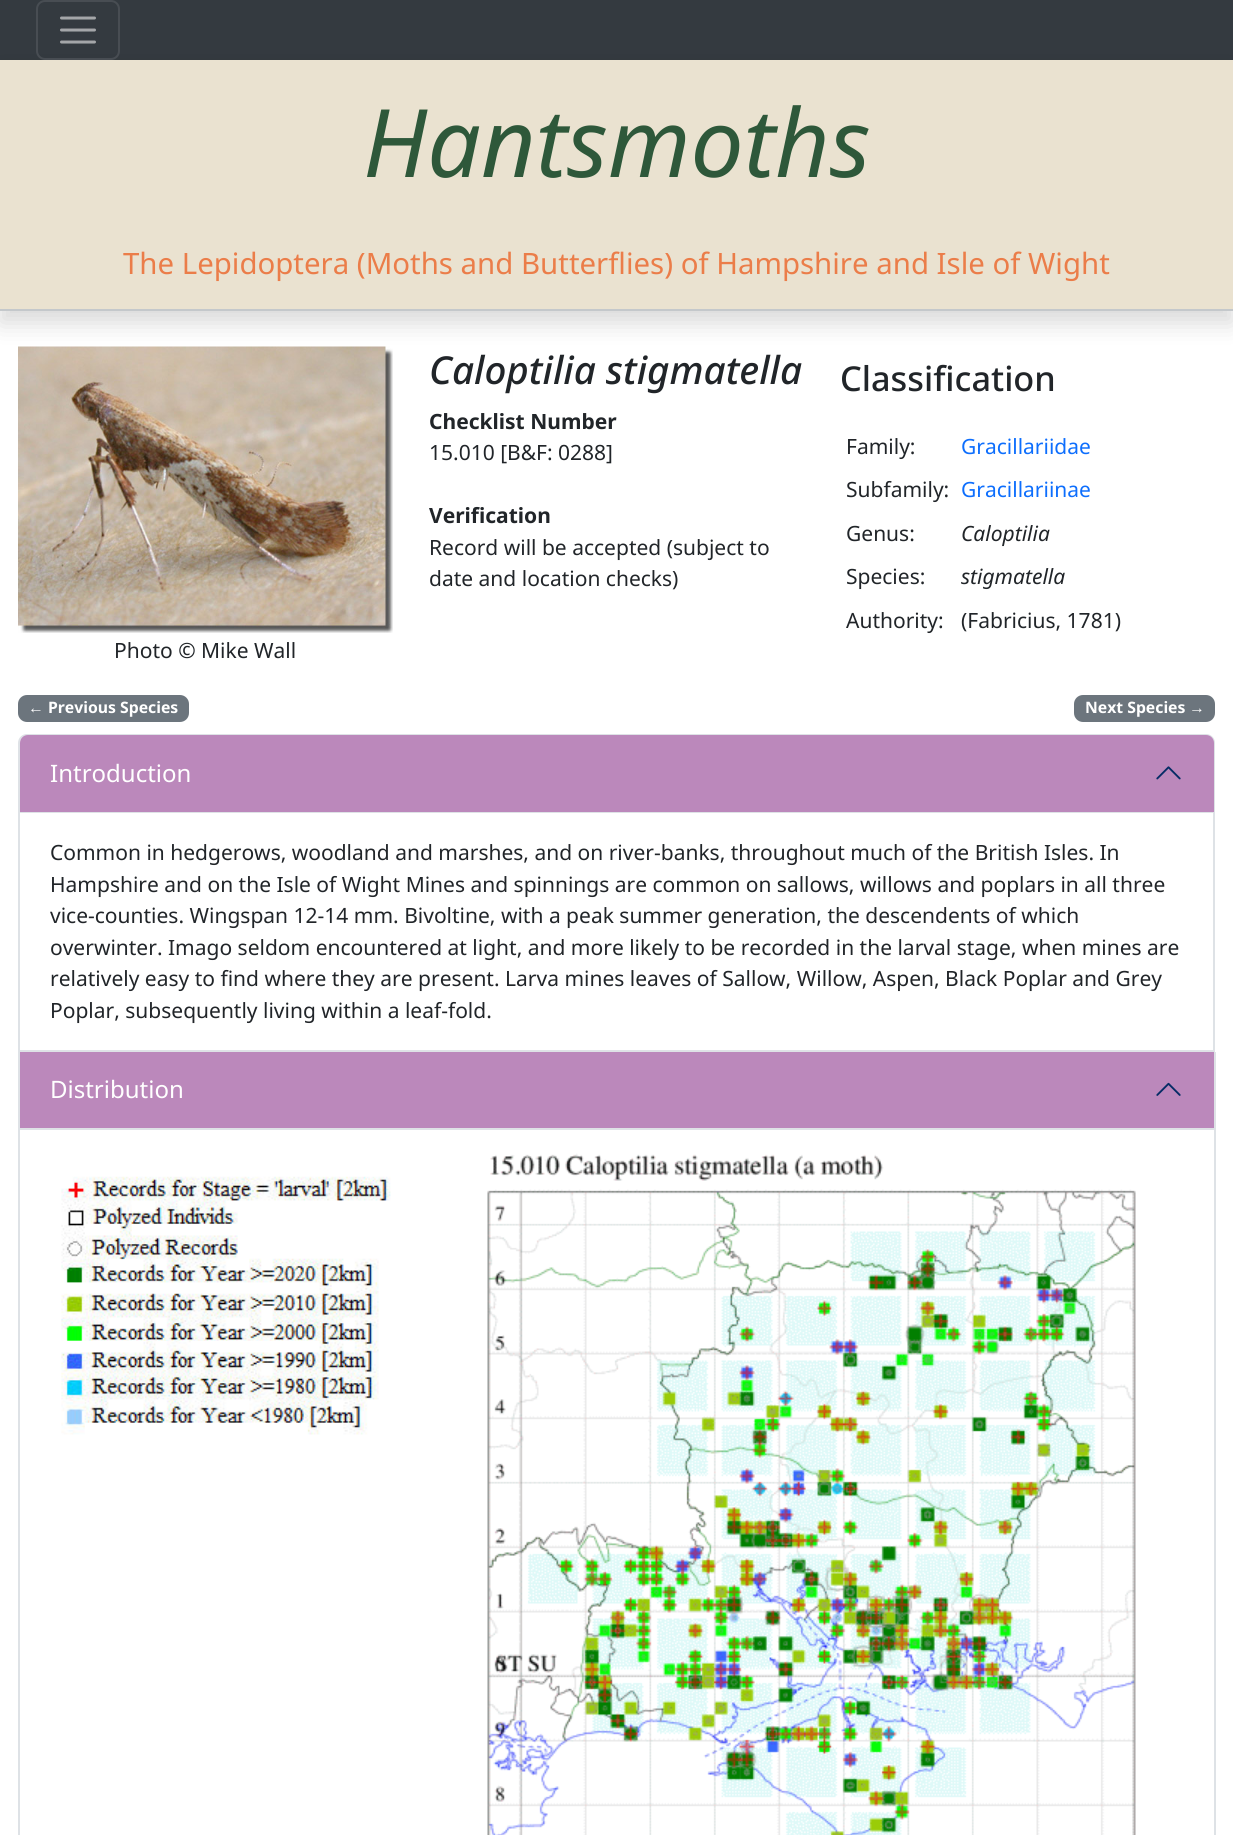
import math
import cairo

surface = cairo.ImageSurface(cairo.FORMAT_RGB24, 1233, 1835)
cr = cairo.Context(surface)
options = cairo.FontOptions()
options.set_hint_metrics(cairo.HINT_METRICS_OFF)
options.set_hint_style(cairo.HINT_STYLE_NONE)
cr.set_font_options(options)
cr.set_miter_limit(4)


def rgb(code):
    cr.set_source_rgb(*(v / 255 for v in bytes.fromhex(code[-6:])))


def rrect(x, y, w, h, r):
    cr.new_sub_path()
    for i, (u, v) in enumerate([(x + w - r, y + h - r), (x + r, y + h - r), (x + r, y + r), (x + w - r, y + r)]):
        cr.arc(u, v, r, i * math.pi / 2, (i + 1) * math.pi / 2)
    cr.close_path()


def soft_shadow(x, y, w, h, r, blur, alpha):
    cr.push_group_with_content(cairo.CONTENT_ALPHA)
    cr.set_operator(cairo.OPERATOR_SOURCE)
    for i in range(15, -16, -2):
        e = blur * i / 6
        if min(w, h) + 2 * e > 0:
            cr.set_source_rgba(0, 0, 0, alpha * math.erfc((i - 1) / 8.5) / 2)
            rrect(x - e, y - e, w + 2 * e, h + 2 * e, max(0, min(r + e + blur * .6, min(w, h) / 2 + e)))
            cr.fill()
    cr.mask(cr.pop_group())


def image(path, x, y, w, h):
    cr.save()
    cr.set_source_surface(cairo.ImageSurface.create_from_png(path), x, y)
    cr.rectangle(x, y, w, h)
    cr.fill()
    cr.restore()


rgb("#ffffff")
cr.paint()
rgb("#343a40")
cr.rectangle(0, 0, 1233, 60)
cr.fill()
rgb("#000000")
soft_shadow(0, 72, 1233, 251, 0, 12, 0.15)
rrect(37, 1, 82, 58, 8)
rgb("#484d53")
cr.stroke()
cr.new_path()
cr.move_to(61.5, 18)
cr.line_to(94.5, 18)
cr.move_to(61.5, 30)
cr.line_to(94.5, 30)
cr.move_to(61.5, 42)
cr.line_to(94.5, 42)
rgb("#a4a6a9")
cr.set_line_width(3)
cr.set_line_cap(cairo.LINE_CAP_ROUND)
cr.stroke()
rgb("#eae2d0")
cr.rectangle(0, 60, 1233, 249)
cr.fill()
rgb("#c4c8cb")
cr.rectangle(0, 309, 1233, 2)
cr.fill()
image("img/1.png", 18, 346, 375, 287)
rgb("#6c757d")
rrect(18, 695, 171, 27, 9)
cr.fill()
rrect(1074, 695, 141, 27, 9)
cr.fill()
cr.new_path()
cr.move_to(27, 735)
cr.line_to(1206, 735)
cr.curve_to(1210.5, 735, 1214, 738.5, 1214, 743)
cr.line_to(1214, 1051)
cr.line_to(19, 1051)
cr.line_to(19, 743)
cr.curve_to(19, 738.5, 22.5, 735, 27, 735)
cr.close_path()
rgb("#dee2e6")
cr.set_line_width(2)
cr.set_line_cap(cairo.LINE_CAP_BUTT)
cr.stroke()
rgb("#bb88bb")
cr.new_path()
cr.move_to(28, 735)
cr.line_to(1206, 735)
cr.curve_to(1210.5, 735, 1214, 738.5, 1214, 743)
cr.line_to(1214, 813)
cr.line_to(20, 813)
cr.line_to(20, 743)
cr.curve_to(20, 738.5, 23.5, 735, 28, 735)
cr.close_path()
cr.fill()
rgb("#dee2e6")
cr.rectangle(20, 812, 1194, 1)
cr.fill()
image("img/2.png", 1156, 766, 25, 14)
for x, y, w, h, color in [
    (1214, 1052, 2, 783, "#dee2e6"),
    (18, 1052, 2, 783, "#dee2e6"),
    (20, 1052, 1194, 76, "#bb88bb"),
    (20, 1128, 1194, 2, "#dee2e6"),
]:
    rgb(color)
    cr.rectangle(x, y, w, h)
    cr.fill()
image("img/3.png", 1156, 1082, 25, 14)
image("img/4.png", 61, 1176, 330, 259)
image("img/5.png", 487, 1153, 649, 682)
cr.select_font_face("Noto Sans", cairo.FONT_SLANT_ITALIC)
cr.set_font_size(94.5)
rgb("#2e583a")
cr.move_to(363, 177)
cr.show_text("Hantsmoths")
cr.select_font_face("Noto Sans")
cr.set_font_size(29.4)
rgb("#eb7d49")
cr.move_to(123, 274)
cr.show_text("The Lepidoptera (Moths and Butterflies) of Hampshire and Isle of Wight")
cr.select_font_face("Noto Sans Medium", cairo.FONT_SLANT_ITALIC)
cr.set_font_size(38.5)
rgb("#212529")
cr.move_to(429, 384)
cr.show_text("Caloptilia stigmatella")
cr.select_font_face("Noto Sans", cairo.FONT_SLANT_NORMAL, cairo.FONT_WEIGHT_BOLD)
cr.set_font_size(21)
cr.move_to(429, 429)
cr.show_text("Checklist Number")
cr.select_font_face("Noto Sans")
cr.move_to(429, 460)
cr.show_text("15.010 [B&F: 0288]")
cr.select_font_face("Noto Sans", cairo.FONT_SLANT_NORMAL, cairo.FONT_WEIGHT_BOLD)
cr.move_to(429, 523)
cr.show_text("Verification")
cr.select_font_face("Noto Sans")
cr.move_to(429, 555)
cr.show_text("Record will be accepted (subject to")
cr.move_to(429, 586)
cr.show_text("date and location checks)")
cr.select_font_face("Noto Sans Medium")
cr.set_font_size(34.25)
cr.move_to(840, 391)
cr.show_text("Classification")
cr.select_font_face("Noto Sans")
cr.set_font_size(21)
cr.move_to(846, 454)
cr.show_text("Family:")
rgb("#0d6efd")
cr.move_to(961, 454)
cr.show_text("Gracillariidae")
rgb("#212529")
cr.move_to(846, 497)
cr.show_text("Subfamily:")
rgb("#0d6efd")
cr.move_to(961, 497)
cr.show_text("Gracillariinae")
rgb("#212529")
cr.move_to(846, 541)
cr.show_text("Genus:")
cr.select_font_face("Noto Sans", cairo.FONT_SLANT_ITALIC)
cr.move_to(961, 541)
cr.show_text("Caloptilia")
cr.select_font_face("Noto Sans")
cr.move_to(846, 584)
cr.show_text("Species:")
cr.select_font_face("Noto Sans", cairo.FONT_SLANT_ITALIC)
cr.move_to(961, 584)
cr.show_text("stigmatella")
cr.select_font_face("Noto Sans")
for x, y, s in [
    (846, 628, "Authority:"),
    (961, 628, "(Fabricius, 1781)"),
    (114, 658, "Photo © Mike Wall"),
]:
    cr.move_to(x, y)
    cr.show_text(s)
cr.select_font_face("Liberation Sans", cairo.FONT_SLANT_NORMAL, cairo.FONT_WEIGHT_BOLD)
cr.set_font_size(15.75)
rgb("#ffffff")
cr.move_to(28, 713)
cr.show_text("←")
cr.select_font_face("Noto Sans", cairo.FONT_SLANT_NORMAL, cairo.FONT_WEIGHT_BOLD)
cr.move_to(48, 713)
cr.show_text("Previous Species")
cr.move_to(1085, 713)
cr.show_text("Next Species")
cr.select_font_face("Liberation Sans", cairo.FONT_SLANT_NORMAL, cairo.FONT_WEIGHT_BOLD)
cr.move_to(1189, 713)
cr.show_text("→")
cr.select_font_face("Noto Sans")
cr.set_font_size(24)
cr.move_to(50, 782)
cr.show_text("Introduction")
cr.set_font_size(21)
rgb("#212529")
for x, y, s in [
    (50, 860, "Common in hedgerows, woodland and marshes, and on river-banks, throughout much of the British Isles. In"),
    (50, 892, "Hampshire and on the Isle of Wight Mines and spinnings are common on sallows, willows and poplars in all three"),
    (50, 923, "vice-counties. Wingspan 12-14 mm. Bivoltine, with a peak summer generation, the descendents of which"),
    (50, 955, "overwinter. Imago seldom encountered at light, and more likely to be recorded in the larval stage, when mines are"),
    (50, 986, "relatively easy to find where they are present. Larva mines leaves of Sallow, Willow, Aspen, Black Poplar and Grey"),
    (50, 1018, "Poplar, subsequently living within a leaf-fold."),
]:
    cr.move_to(x, y)
    cr.show_text(s)
cr.set_font_size(24)
rgb("#ffffff")
cr.move_to(50, 1098)
cr.show_text("Distribution")
surface.write_to_png("page.png")
